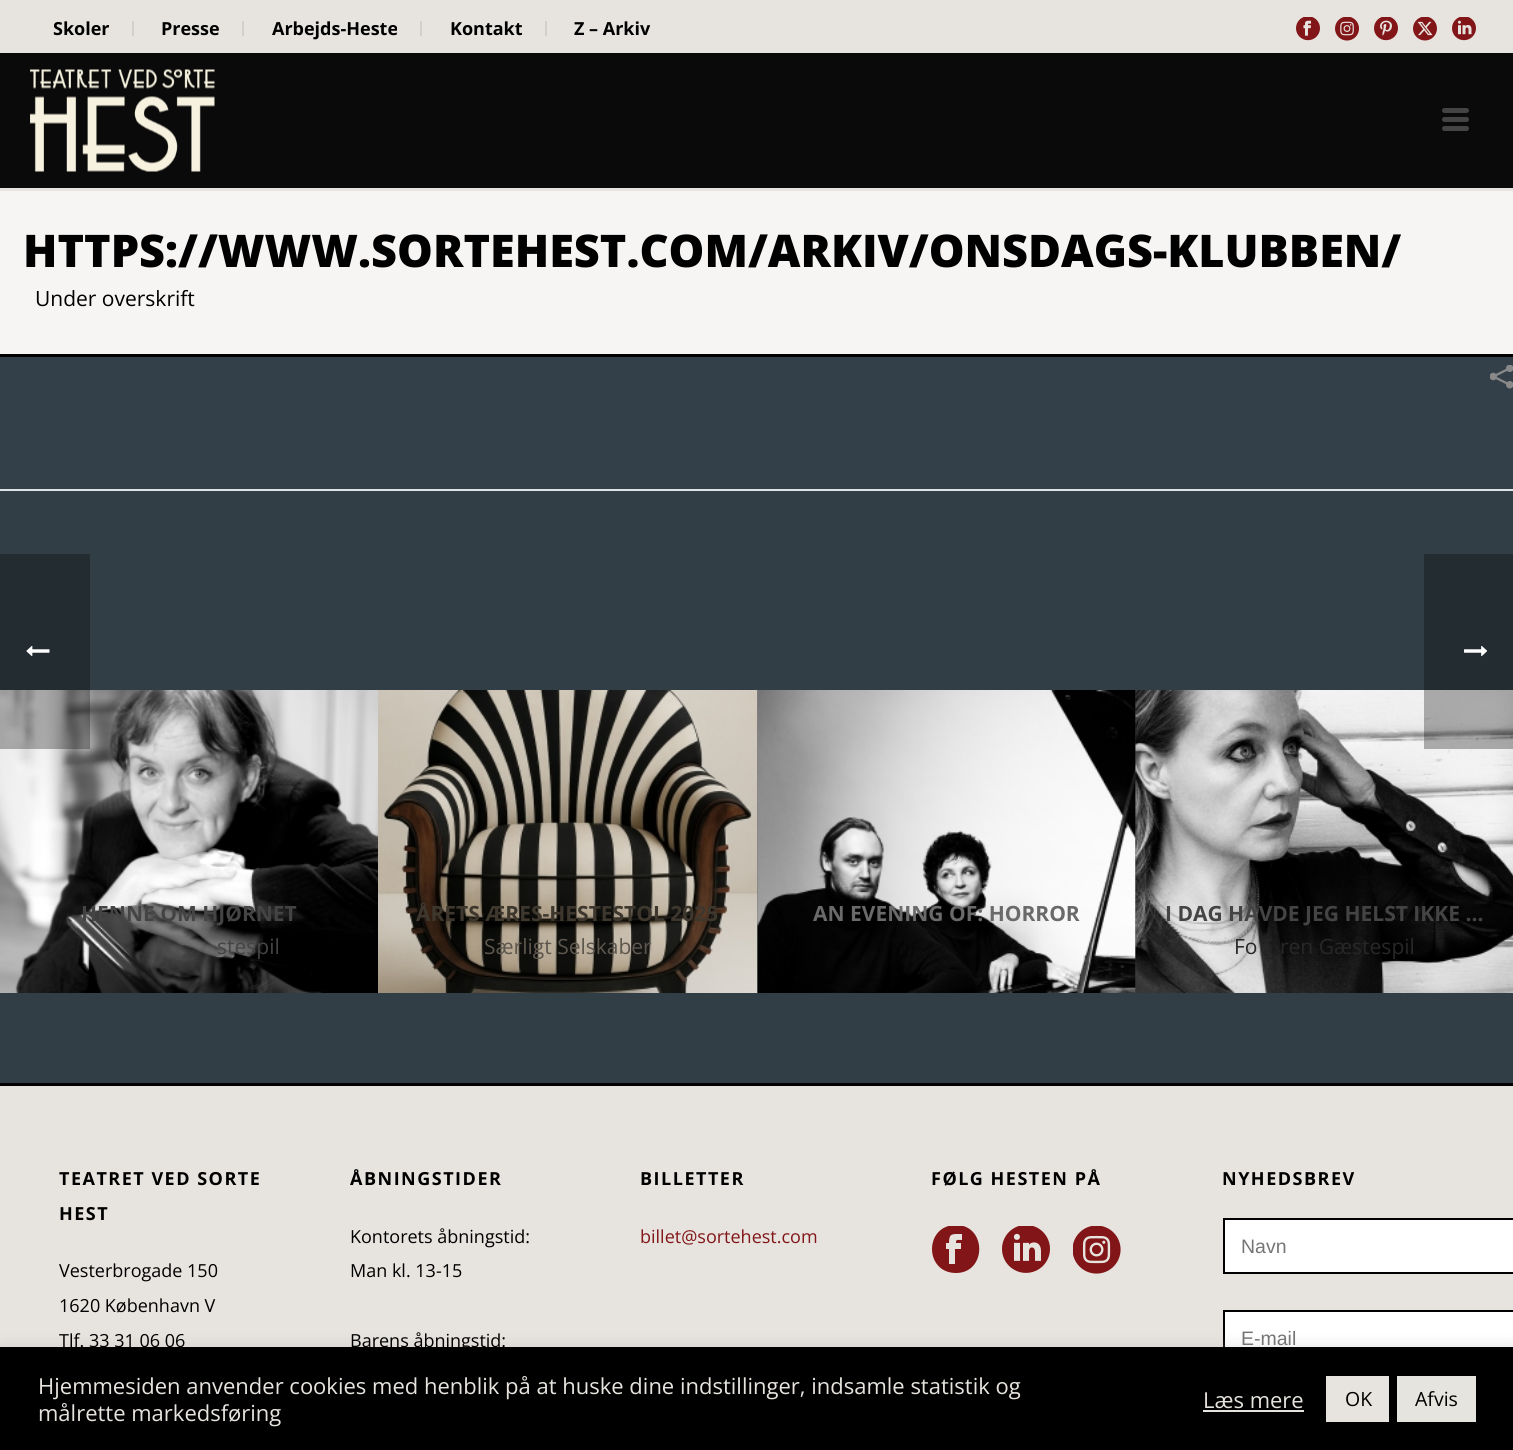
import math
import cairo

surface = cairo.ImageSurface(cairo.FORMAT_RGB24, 1513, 1450)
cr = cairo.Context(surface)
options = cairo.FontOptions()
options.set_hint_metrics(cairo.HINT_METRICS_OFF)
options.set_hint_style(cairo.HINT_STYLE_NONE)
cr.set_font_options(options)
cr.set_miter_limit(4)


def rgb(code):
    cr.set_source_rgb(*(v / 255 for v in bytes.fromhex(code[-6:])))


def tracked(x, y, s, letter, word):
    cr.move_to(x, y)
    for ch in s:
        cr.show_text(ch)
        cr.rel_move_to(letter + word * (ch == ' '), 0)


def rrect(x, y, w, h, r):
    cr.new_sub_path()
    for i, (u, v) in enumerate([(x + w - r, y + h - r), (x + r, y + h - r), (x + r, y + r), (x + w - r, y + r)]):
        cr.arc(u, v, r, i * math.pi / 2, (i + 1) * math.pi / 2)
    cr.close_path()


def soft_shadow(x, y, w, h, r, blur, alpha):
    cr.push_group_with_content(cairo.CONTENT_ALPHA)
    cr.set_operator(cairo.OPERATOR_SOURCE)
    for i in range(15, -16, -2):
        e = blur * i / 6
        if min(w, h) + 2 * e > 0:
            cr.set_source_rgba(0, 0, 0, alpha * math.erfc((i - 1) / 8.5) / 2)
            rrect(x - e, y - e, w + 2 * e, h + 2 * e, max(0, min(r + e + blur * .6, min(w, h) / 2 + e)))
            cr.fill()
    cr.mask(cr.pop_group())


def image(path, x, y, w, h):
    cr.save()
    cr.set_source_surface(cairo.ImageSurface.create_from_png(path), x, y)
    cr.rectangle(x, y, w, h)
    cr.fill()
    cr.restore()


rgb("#344049")
cr.paint()
for x, y, w, h, color in [
    (0, 191, 1513, 163, "#f7f5f3"),
    (0, 354, 1513, 3, "#000000"),
    (0, 0, 1513, 53, "#e7e4df"),
    (132, 21, 2, 15, "#d2d0cc"),
    (242, 21, 2, 15, "#d2d0cc"),
    (420, 21, 2, 15, "#d2d0cc"),
    (545, 21, 2, 15, "#d2d0cc"),
]:
    rgb(color)
    cr.rectangle(x, y, w, h)
    cr.fill()
image("img/1.png", 1296, 17, 24, 24)
image("img/2.png", 1335, 17, 24, 24)
image("img/3.png", 1374, 17, 24, 24)
image("img/4.png", 1413, 17, 24, 24)
image("img/5.png", 1452, 17, 24, 24)
rgb("#e7e4df")
cr.rectangle(0, 188, 1513, 3)
cr.fill()
rgb("#0a0a0a")
cr.rectangle(0, 53, 1513, 135)
cr.fill()
image("img/6.png", 30, 69, 185, 103)
rgb("#444444")
rrect(1442, 108, 27, 5, 2.5)
cr.fill()
rrect(1442, 117, 27, 5, 2.5)
cr.fill()
rrect(1442, 126, 27, 5, 2.5)
cr.fill()
image("img/7.png", 1490, 365, 23, 24)
rgb("#323e46")
cr.rectangle(0, 491, 1513, 592)
cr.fill()
rgb("#dfe2e5")
cr.rectangle(0, 489, 1513, 2)
cr.fill()
image("img/8.png", 0, 690, 378, 303)
image("img/9.png", 378, 690, 380, 303)
image("img/10.png", 757, 690, 379, 303)
image("img/11.png", 1135, 690, 378, 303)
rgb("#e7e4df")
cr.rectangle(0, 1086, 1513, 261)
cr.fill()
rgb("#000000")
cr.rectangle(0, 1083, 1513, 3)
cr.fill()
cr.save()
cr.rectangle(932, 1226, 48, 48)
cr.clip()
rgb("#821517")
cr.new_path()
cr.move_to(956, 1225)
cr.curve_to(924, 1225, 924, 1273, 956, 1273)
cr.curve_to(987, 1273, 987, 1225, 956, 1225)
cr.close_path()
cr.move_to(962, 1240)
cr.curve_to(957, 1240, 956, 1239, 956, 1243)
cr.line_to(961, 1243)
cr.line_to(961, 1249)
cr.line_to(955, 1249)
cr.line_to(955, 1264)
cr.line_to(949, 1264)
cr.line_to(949, 1249)
cr.line_to(946, 1249)
cr.line_to(946, 1243)
cr.line_to(949, 1243)
cr.curve_to(949, 1233, 952, 1234, 962, 1234)
cr.close_path()
cr.fill()
cr.restore()
image("img/12.png", 1002, 1226, 48, 47)
image("img/13.png", 1073, 1226, 48, 48)
rgb("#ffffff")
cr.rectangle(1224, 1219, 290, 54)
cr.fill_preserve()
rgb("#000000")
cr.stroke()
rgb("#ffffff")
cr.rectangle(1225, 1312, 288, 35)
cr.fill()
cr.rectangle(1224, 1311, 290, 53)
rgb("#000000")
cr.stroke()
cr.set_source_rgba(0, 0, 0, 0.3)
cr.rectangle(0, 554, 90, 195)
cr.fill()
image("img/14.png", 26, 645, 24, 12)
cr.rectangle(1424, 554, 89, 195)
cr.fill()
image("img/15.png", 1464, 645, 24, 12)
rgb("#acabab")
soft_shadow(0, 1346, 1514, 103, 0, 7.5, 0.3)
for x, y, w, h, color in [
    (0, 1347, 1513, 103, "#000000"),
    (1203, 1410, 101, 2, "#e7e4df"),
    (1326, 1376, 63, 46, "#e7e4df"),
    (1397, 1376, 79, 46, "#e6e4de"),
]:
    rgb(color)
    cr.rectangle(x, y, w, h)
    cr.fill()
cr.select_font_face("Open Sans", cairo.FONT_SLANT_NORMAL, cairo.FONT_WEIGHT_BOLD)
cr.set_font_size(18)
rgb("#000000")
for x, y, s in [
    (53, 35, "Skoler"),
    (161, 35, "Presse"),
    (272, 35, "Arbejds-Heste"),
    (450, 35, "Kontakt"),
    (574, 35, "Z – Arkiv"),
]:
    cr.move_to(x, y)
    cr.show_text(s)
cr.select_font_face("Open Sans ExtraBold")
cr.set_font_size(45)
cr.move_to(23, 267)
cr.show_text("HTTPS://WWW.SORTEHEST.COM/ARKIV/ONSDAGS-KLUBBEN/")
cr.select_font_face("Open Sans")
cr.set_font_size(21)
cr.move_to(35, 306)
cr.show_text("Under overskrift")
cr.select_font_face("Open Sans", cairo.FONT_SLANT_NORMAL, cairo.FONT_WEIGHT_BOLD)
rgb("#444444")
cr.move_to(81, 921)
cr.show_text("HENNE OM HJØRNET")
cr.select_font_face("Open Sans")
cr.move_to(217, 954)
cr.show_text("stespil")
cr.select_font_face("Open Sans", cairo.FONT_SLANT_NORMAL, cairo.FONT_WEIGHT_BOLD)
rgb("#3e372e")
cr.move_to(416, 921)
cr.show_text("ÅRETS ÆRES-HESTESTOL 2025")
cr.select_font_face("Open Sans")
rgb("#5c564d")
cr.move_to(484, 954)
cr.show_text("Særligt Selskaber")
cr.select_font_face("Open Sans", cairo.FONT_SLANT_NORMAL, cairo.FONT_WEIGHT_BOLD)
rgb("#6a6a6a")
cr.move_to(813, 921)
cr.show_text("AN EVENING OF: HORROR")
rgb("#444444")
cr.move_to(1165, 921)
cr.show_text("I DAG HAVDE JEG HELST IKKE …")
cr.select_font_face("Open Sans")
rgb("#272727")
cr.move_to(1234, 954)
cr.show_text("Fo")
cr.move_to(1280, 954)
cr.show_text("ren Gæstespil")
cr.select_font_face("Open Sans", cairo.FONT_SLANT_NORMAL, cairo.FONT_WEIGHT_BOLD)
cr.set_font_size(18)
rgb("#000000")
tracked(59, 1185, "TEATRET VED SORTE", 1.5, 0)
tracked(59, 1220, "HEST", 1.5, 0)
cr.select_font_face("Open Sans")
for x, y, s in [
    (59, 1277, "Vesterbrogade 150"),
    (59, 1312, "1620 København V"),
    (59, 1347, "Tlf. 33 31 06 06"),
]:
    cr.move_to(x, y)
    cr.show_text(s)
cr.select_font_face("Open Sans", cairo.FONT_SLANT_NORMAL, cairo.FONT_WEIGHT_BOLD)
tracked(350, 1185, "ÅBNINGSTIDER", 1.5, 0)
cr.select_font_face("Open Sans")
for x, y, s in [
    (350, 1243, "Kontorets åbningstid:"),
    (350, 1277, "Man kl. 13-15"),
    (350, 1347, "Barens åbningstid:"),
]:
    cr.move_to(x, y)
    cr.show_text(s)
cr.select_font_face("Open Sans", cairo.FONT_SLANT_NORMAL, cairo.FONT_WEIGHT_BOLD)
tracked(640, 1185, "BILLETTER", 1.5, 0)
cr.select_font_face("Open Sans")
rgb("#821517")
cr.move_to(640, 1243)
cr.show_text("billet@sortehest.com")
cr.select_font_face("Open Sans", cairo.FONT_SLANT_NORMAL, cairo.FONT_WEIGHT_BOLD)
rgb("#000000")
tracked(931, 1185, "FØLG HESTEN PÅ", 1.5, 0)
tracked(1222, 1185, "NYHEDSBREV", 1.5, 0)
cr.select_font_face("Liberation Sans")
cr.set_font_size(19.5)
rgb("#757575")
cr.move_to(1241, 1253)
cr.show_text("Navn")
cr.move_to(1241, 1345)
cr.show_text("E-mail")
cr.select_font_face("Open Sans")
cr.set_font_size(22)
rgb("#e7e4df")
for x, y, s in [
    (38, 1394, "Hjemmesiden anvender cookies med henblik på at huske dine indstillinger, indsamle statistik og"),
    (38, 1421, "målrette markedsføring"),
    (1203, 1408, "Læs mere"),
]:
    cr.move_to(x, y)
    cr.show_text(s)
cr.set_font_size(19.5)
rgb("#000000")
cr.move_to(1345, 1406)
cr.show_text("OK")
cr.move_to(1415, 1406)
cr.show_text("Afvis")
surface.write_to_png("page.png")
